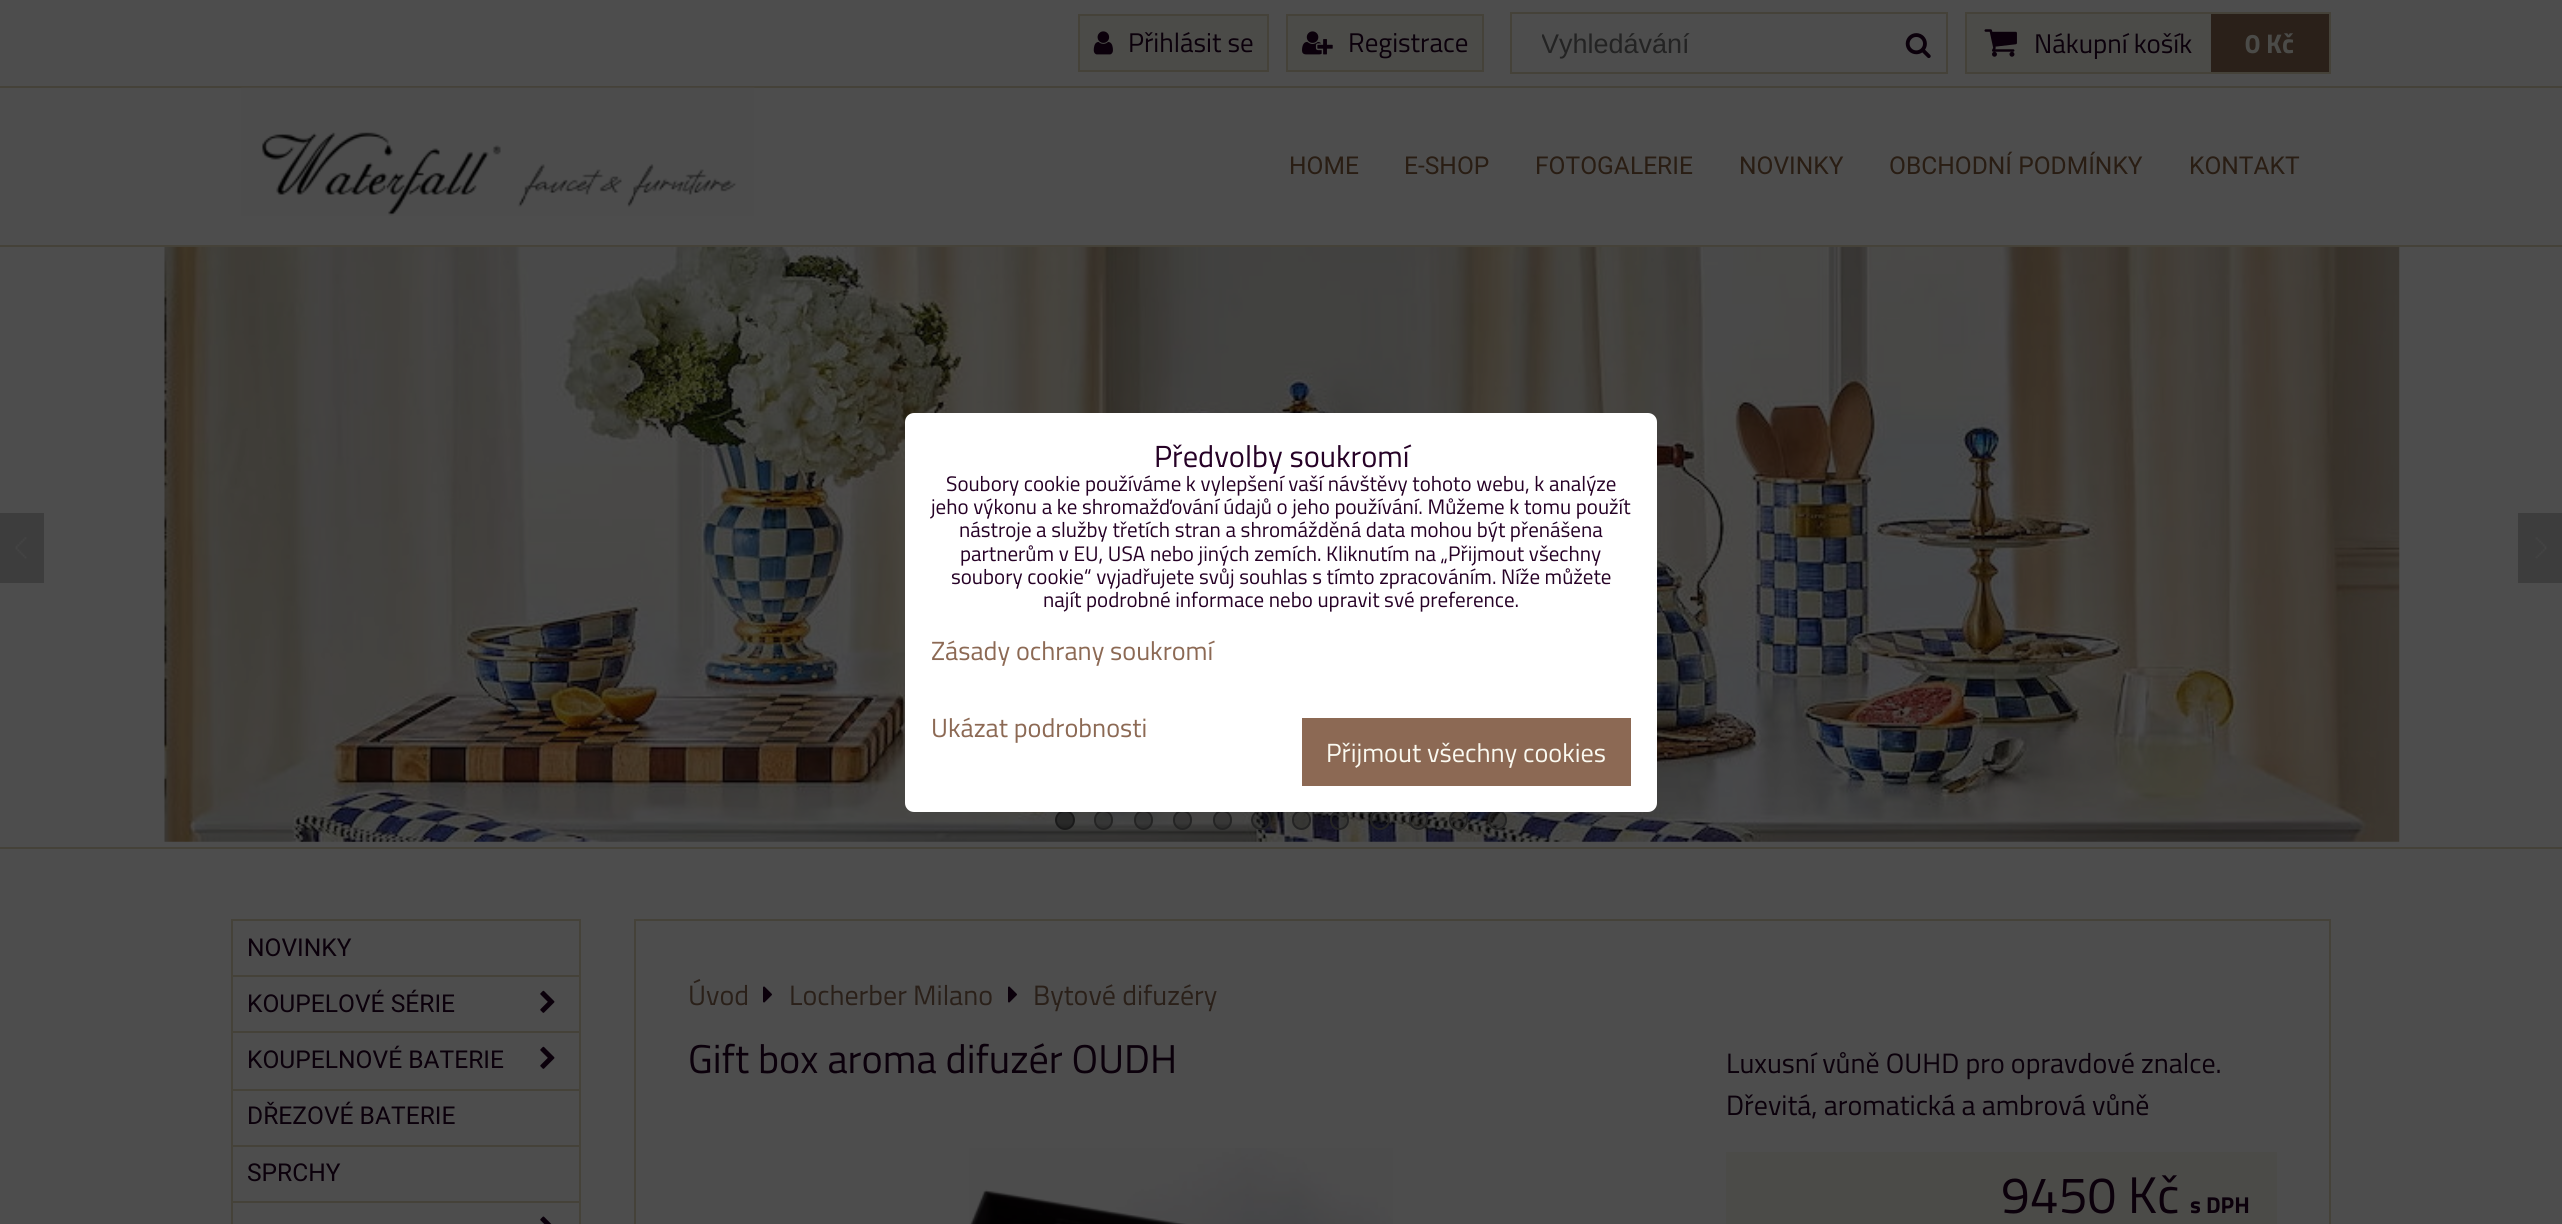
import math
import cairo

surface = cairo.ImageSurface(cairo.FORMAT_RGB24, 2562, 1224)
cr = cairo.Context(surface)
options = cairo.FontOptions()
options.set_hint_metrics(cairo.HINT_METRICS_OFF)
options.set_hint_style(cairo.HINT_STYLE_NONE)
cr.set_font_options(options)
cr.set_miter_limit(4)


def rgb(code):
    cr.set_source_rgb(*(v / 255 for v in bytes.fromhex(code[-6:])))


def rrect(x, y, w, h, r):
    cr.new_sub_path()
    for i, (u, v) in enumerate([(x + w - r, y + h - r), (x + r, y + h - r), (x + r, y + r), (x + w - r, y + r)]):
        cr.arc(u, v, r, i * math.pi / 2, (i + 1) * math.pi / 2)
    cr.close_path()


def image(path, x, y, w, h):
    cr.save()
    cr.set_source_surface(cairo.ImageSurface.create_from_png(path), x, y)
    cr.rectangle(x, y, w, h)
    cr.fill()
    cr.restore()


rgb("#4d4d4d")
cr.paint()
rgb("#454239")
cr.rectangle(0, 86, 2562, 2)
cr.fill()
rgb("#4b4b48")
cr.rectangle(1079, 15, 189, 56)
cr.fill_preserve()
rgb("#454239")
cr.stroke()
image("img/1.png", 1093, 31, 20, 24)
rgb("#4b4b48")
cr.rectangle(1287, 15, 196, 56)
cr.fill_preserve()
rgb("#454239")
cr.stroke()
image("img/2.png", 1302, 31, 31, 24)
cr.rectangle(1511, 13, 436, 60)
cr.stroke()
image("img/3.png", 1905, 33, 26, 26)
rgb("#4b4b48")
cr.rectangle(1967, 14, 242, 58)
cr.fill()
cr.rectangle(1966, 13, 364, 60)
rgb("#454239")
cr.stroke()
image("img/4.png", 1984, 29, 33, 28)
rgb("#2a2019")
cr.rectangle(2211, 14, 118, 58)
cr.fill()
rgb("#4b4b48")
cr.rectangle(2209, 14, 2, 58)
cr.fill()
image("img/5.png", 241, 87, 514, 129)
rgb("#454239")
cr.rectangle(0, 245, 2562, 2)
cr.fill()
cr.rectangle(0, 847, 2562, 2)
cr.fill()
image("img/6.png", 164, 246, 2236, 596)
rgb("#3d3d3d")
cr.rectangle(0, 513, 44, 70)
cr.fill()
image("img/7.png", 15, 537, 12, 22)
cr.rectangle(2518, 513, 44, 70)
cr.fill()
image("img/8.png", 2535, 537, 12, 22)
cr.set_source_rgba(0, 0, 0, 0.4)
cr.arc(1065, 820, 9, 0, 2 * math.pi)
cr.fill_preserve()
rgb("#1a1a1a")
cr.stroke()
cr.set_source_rgba(0, 0, 0, 0.2)
rrect(1095, 811, 17, 18, 8.5)
cr.fill_preserve()
rgb("#242424")
cr.stroke()
cr.set_source_rgba(0, 0, 0, 0.2)
rrect(1135, 811, 17, 18, 8.5)
cr.fill_preserve()
rgb("#242424")
cr.stroke()
cr.set_source_rgba(0, 0, 0, 0.2)
rrect(1174, 811, 17, 18, 8.5)
cr.fill_preserve()
rgb("#242424")
cr.stroke()
cr.set_source_rgba(0, 0, 0, 0.2)
rrect(1214, 811, 17, 18, 8.5)
cr.fill_preserve()
rgb("#242424")
cr.stroke()
cr.set_source_rgba(0, 0, 0, 0.2)
cr.arc(1261, 820, 9, 0, 2 * math.pi)
cr.fill_preserve()
rgb("#242424")
cr.stroke()
cr.set_source_rgba(0, 0, 0, 0.2)
rrect(1293, 811, 17, 18, 8.5)
cr.fill_preserve()
rgb("#242424")
cr.stroke()
cr.set_source_rgba(0, 0, 0, 0.2)
rrect(1331, 811, 17, 18, 8.5)
cr.fill_preserve()
rgb("#242424")
cr.stroke()
cr.set_source_rgba(0, 0, 0, 0.2)
cr.arc(1380, 820, 9, 0, 2 * math.pi)
cr.fill_preserve()
rgb("#242424")
cr.stroke()
cr.set_source_rgba(0, 0, 0, 0.2)
rrect(1410, 811, 17, 18, 8.5)
cr.fill_preserve()
rgb("#242424")
cr.stroke()
cr.set_source_rgba(0, 0, 0, 0.2)
rrect(1450, 811, 17, 18, 8.5)
cr.fill_preserve()
rgb("#242424")
cr.stroke()
cr.set_source_rgba(0, 0, 0, 0.2)
rrect(1489, 811, 17, 18, 8.5)
cr.fill_preserve()
rgb("#242424")
cr.stroke()
cr.rectangle(232, 920, 348, 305)
rgb("#454239")
cr.stroke()
cr.rectangle(233, 975, 346, 2)
cr.fill()
cr.rectangle(233, 1031, 346, 2)
cr.fill()
image("img/9.png", 540, 990, 15, 23)
cr.rectangle(233, 1089, 346, 2)
cr.fill()
image("img/9.png", 540, 1046, 15, 23)
cr.rectangle(233, 1145, 346, 2)
cr.fill()
cr.rectangle(233, 1201, 346, 2)
cr.fill()
image("img/10.png", 540, 1216, 12, 8)
cr.rectangle(635, 920, 1695, 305)
cr.stroke()
image("img/11.png", 763, 986, 9, 17)
image("img/11.png", 1008, 986, 9, 17)
image("img/12.png", 969, 1148, 424, 76)
rgb("#4b4b48")
cr.rectangle(1726, 1152, 551, 72)
cr.fill()
rgb("#ffffff")
rrect(905, 413, 752, 399, 9)
cr.fill()
rgb("#8c6954")
cr.rectangle(1302, 718, 329, 68)
cr.fill()
cr.select_font_face("Titillium Web")
cr.set_font_size(27)
rgb("#0b000b")
cr.move_to(1128, 52)
cr.show_text("Přihlásit se")
cr.move_to(1348, 52)
cr.show_text("Registrace")
cr.save()
cr.rectangle(1542, 28, 355, 32)
cr.clip()
cr.select_font_face("Liberation Sans")
rgb("#232323")
cr.move_to(1541, 53)
cr.show_text("Vyhledávání")
cr.restore()
cr.move_to(2034, 53)
cr.show_text("Nákupní košík")
cr.select_font_face("Titillium Web", cairo.FONT_SLANT_NORMAL, cairo.FONT_WEIGHT_BOLD)
rgb("#4b4b48")
cr.move_to(2245, 53)
cr.show_text("0 Kč")
cr.select_font_face("Roboto")
cr.set_font_size(24.6)
rgb("#291d13")
for x, y, s in [
    (1289, 174, "HOME"),
    (1404, 174, "E-SHOP"),
    (1535, 174, "FOTOGALERIE"),
    (1739, 174, "NOVINKY"),
    (1889, 174, "OBCHODNÍ PODMÍNKY"),
    (2189, 174, "KONTAKT"),
]:
    cr.move_to(x, y)
    cr.show_text(s)
rgb("#0b000b")
for x, y, s in [
    (247, 956, "NOVINKY"),
    (247, 1012, "KOUPELOVÉ SÉRIE"),
    (247, 1068, "KOUPELNOVÉ BATERIE"),
    (247, 1124, "DŘEZOVÉ BATERIE"),
    (247, 1181, "SPRCHY"),
]:
    cr.move_to(x, y)
    cr.show_text(s)
cr.select_font_face("Titillium Web")
cr.set_font_size(28)
rgb("#2a2019")
for x, y, s in [
    (688, 1005, "Úvod"),
    (789, 1005, "Locherber Milano"),
    (1033, 1005, "Bytové difuzéry"),
]:
    cr.move_to(x, y)
    cr.show_text(s)
cr.set_font_size(40.25)
rgb("#0b000b")
cr.move_to(688, 1073)
cr.show_text("Gift box aroma difuzér OUDH")
cr.set_font_size(28)
cr.move_to(1726, 1073)
cr.show_text("Luxusní vůně OUHD pro opravdové znalce.")
cr.move_to(1726, 1115)
cr.show_text("Dřevitá, aromatická a ambrová vůně")
cr.set_font_size(51.5)
cr.move_to(2001, 1213)
cr.show_text("9450 Kč")
cr.select_font_face("Titillium Web", cairo.FONT_SLANT_NORMAL, cairo.FONT_WEIGHT_BOLD)
cr.set_font_size(23)
cr.move_to(2190, 1213)
cr.show_text("s DPH")
cr.select_font_face("Titillium Web")
cr.set_font_size(30.5)
rgb("#260126")
cr.move_to(1154, 467)
cr.show_text("Předvolby soukromí")
cr.set_font_size(21)
for x, y, s in [
    (946, 491, "Soubory cookie používáme k vylepšení vaší návštěvy tohoto webu, k analýze"),
    (931, 514, "jeho výkonu a ke shromažďování údajů o jeho používání. Můžeme k tomu použít"),
    (959, 537, "nástroje a služby třetích stran a shromážděná data mohou být přenášena"),
    (960, 561, "partnerům v EU, USA nebo jiných zemích. Kliknutím na „Přijmout všechny"),
    (951, 584, "soubory cookie“ vyjadřujete svůj souhlas s tímto zpracováním. Níže můžete"),
    (1043, 607, "najít podrobné informace nebo upravit své preference."),
]:
    cr.move_to(x, y)
    cr.show_text(s)
cr.set_font_size(26.25)
rgb("#8c6954")
cr.move_to(931, 660)
cr.show_text("Zásady ochrany soukromí")
cr.move_to(931, 737)
cr.show_text("Ukázat podrobnosti")
rgb("#faf9f0")
cr.move_to(1326, 762)
cr.show_text("Přijmout všechny cookies")
surface.write_to_png("page.png")
